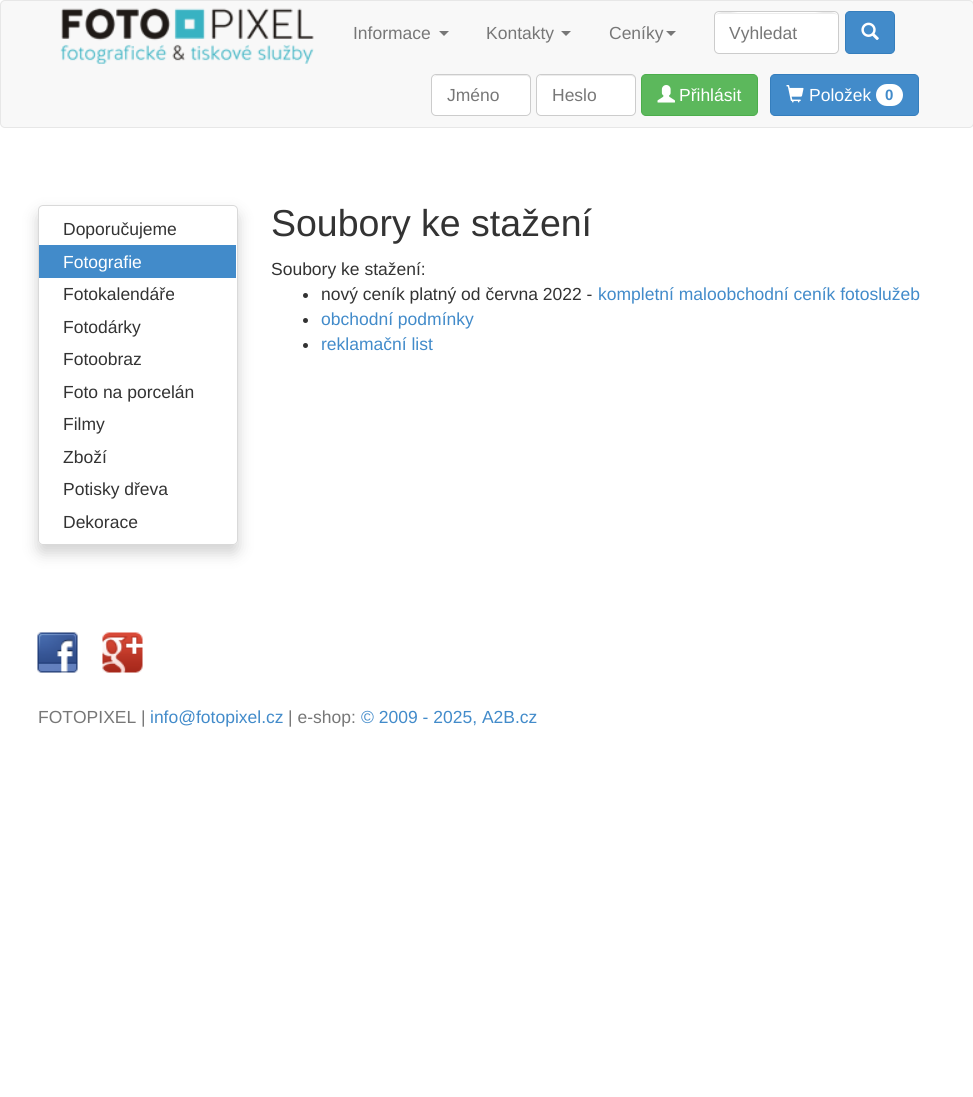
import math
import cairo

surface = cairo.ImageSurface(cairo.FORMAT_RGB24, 973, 1097)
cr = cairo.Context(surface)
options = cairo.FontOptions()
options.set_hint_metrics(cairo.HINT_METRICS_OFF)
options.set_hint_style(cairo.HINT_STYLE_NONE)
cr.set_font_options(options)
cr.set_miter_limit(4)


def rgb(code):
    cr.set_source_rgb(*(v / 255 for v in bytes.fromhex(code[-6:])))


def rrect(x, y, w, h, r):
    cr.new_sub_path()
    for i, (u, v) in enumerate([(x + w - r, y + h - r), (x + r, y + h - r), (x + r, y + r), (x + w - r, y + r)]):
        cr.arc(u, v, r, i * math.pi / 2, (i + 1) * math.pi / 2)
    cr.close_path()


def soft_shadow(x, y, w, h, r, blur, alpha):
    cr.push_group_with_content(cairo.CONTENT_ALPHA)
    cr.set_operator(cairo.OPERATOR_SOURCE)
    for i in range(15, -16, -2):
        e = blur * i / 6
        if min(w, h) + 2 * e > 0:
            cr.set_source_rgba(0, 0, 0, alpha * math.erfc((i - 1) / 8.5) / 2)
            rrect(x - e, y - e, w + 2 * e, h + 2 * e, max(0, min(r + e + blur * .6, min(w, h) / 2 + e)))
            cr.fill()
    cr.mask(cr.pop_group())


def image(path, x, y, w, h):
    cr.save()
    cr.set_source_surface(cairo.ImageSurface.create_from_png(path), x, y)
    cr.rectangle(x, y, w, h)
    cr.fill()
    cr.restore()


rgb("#ffffff")
cr.paint()
rgb("#f8f8f8")
rrect(0.5, 0.5, 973, 127, 4.5)
cr.fill_preserve()
rgb("#e7e7e7")
cr.set_line_width(1)
cr.stroke()
image("img/1.png", 60, 7, 254, 57)
rgb("#777777")
cr.new_path()
cr.move_to(439, 31)
cr.line_to(449, 31)
cr.line_to(444, 36)
cr.close_path()
cr.fill()
cr.new_path()
cr.move_to(561, 31)
cr.line_to(571, 31)
cr.line_to(566, 36)
cr.close_path()
cr.fill()
cr.new_path()
cr.move_to(666, 31)
cr.line_to(676, 31)
cr.line_to(671, 36)
cr.close_path()
cr.fill()
rgb("#ffffff")
rrect(714, 11, 125, 43, 5)
cr.fill()
rgb("#ececec")
cr.new_path()
cr.move_to(719, 14)
cr.line_to(834, 14)
cr.curve_to(836, 14, 838, 15, 838, 18)
cr.curve_to(838, 8, 818, 13, 815, 13)
cr.line_to(738, 13)
cr.curve_to(735, 13, 715, 8, 715, 18)
cr.curve_to(715, 15, 717, 14, 719, 14)
cr.close_path()
cr.fill()
rrect(714.5, 11.5, 124, 42, 4.5)
rgb("#cccccc")
cr.stroke()
rgb("#428bca")
rrect(845.5, 11.5, 49, 42, 4.5)
cr.fill_preserve()
rgb("#357ebd")
cr.stroke()
image("img/2.png", 861, 22, 18, 18)
rgb("#ffffff")
rrect(431, 74, 100, 42, 5)
cr.fill()
rgb("#ececec")
cr.new_path()
cr.move_to(436, 76)
cr.line_to(526, 76)
cr.curve_to(528, 76, 530, 78, 530, 80)
cr.curve_to(530, 79, 530, 77, 529, 76)
cr.line_to(526, 75)
cr.line_to(436, 75)
cr.line_to(434, 77)
cr.close_path()
cr.fill()
rrect(431.5, 74.5, 99, 41, 4.5)
rgb("#cccccc")
cr.stroke()
rgb("#ffffff")
rrect(536, 74, 100, 42, 5)
cr.fill()
rgb("#ececec")
cr.new_path()
cr.move_to(541, 76)
cr.line_to(631, 76)
cr.curve_to(633, 76, 635, 78, 635, 80)
cr.curve_to(635, 71, 621, 75, 616, 75)
cr.line_to(557, 75)
cr.curve_to(552, 75, 538, 71, 538, 80)
cr.curve_to(538, 78, 539, 76, 541, 76)
cr.close_path()
cr.fill()
rrect(536.5, 74.5, 99, 41, 4.5)
rgb("#cccccc")
cr.stroke()
rgb("#5cb85c")
rrect(641.5, 74.5, 116, 41, 4.5)
cr.fill_preserve()
rgb("#4cae4c")
cr.stroke()
image("img/3.png", 657, 85, 18, 18)
rgb("#428bca")
rrect(770.5, 74.5, 148, 41, 4.5)
cr.fill_preserve()
rgb("#357ebd")
cr.stroke()
image("img/4.png", 786, 85, 18, 18)
rgb("#ffffff")
rrect(876, 84, 27, 22, 11)
cr.fill()
cr.save()
cr.set_fill_rule(cairo.FILL_RULE_EVEN_ODD)
cr.new_path()
cr.move_to(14, 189)
cr.line_to(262, 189)
cr.line_to(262, 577)
cr.line_to(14, 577)
cr.close_path()
cr.move_to(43, 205)
cr.line_to(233, 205)
cr.curve_to(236, 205, 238, 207, 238, 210)
cr.line_to(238, 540)
cr.curve_to(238, 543, 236, 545, 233, 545)
cr.line_to(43, 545)
cr.curve_to(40, 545, 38, 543, 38, 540)
cr.line_to(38, 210)
cr.curve_to(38, 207, 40, 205, 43, 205)
cr.close_path()
cr.clip()
rgb("#000000")
soft_shadow(38, 213, 200, 340, 5, 7.5, 0.18)
cr.restore()
rrect(38.5, 205.5, 199, 339, 4.5)
cr.set_source_rgba(0, 0, 0, 0.15)
cr.stroke()
rgb("#428bca")
cr.rectangle(39, 245, 197, 33)
cr.fill()
rgb("#333333")
cr.arc(305.5, 295.5, 2.5, 0, 2 * math.pi)
cr.fill()
cr.arc(305.5, 320.5, 2.5, 0, 2 * math.pi)
cr.fill()
cr.arc(305.5, 345.5, 2.5, 0, 2 * math.pi)
cr.fill()
image("img/5.png", 37, 632, 41, 41)
image("img/6.png", 102, 632, 41, 41)
cr.select_font_face("Liberation Sans")
cr.set_font_size(17.5)
rgb("#777777")
for x, y, s in [
    (353, 39, "Informace"),
    (486, 39, "Kontakty"),
    (609, 39, "Ceníky"),
    (729, 39, "Vyhledat"),
    (447, 101, "Jméno"),
    (552, 101, "Heslo"),
]:
    cr.move_to(x, y)
    cr.show_text(s)
rgb("#ffffff")
cr.move_to(679, 101)
cr.show_text("Přihlásit")
cr.move_to(809, 101)
cr.show_text("Položek")
cr.select_font_face("Liberation Sans", cairo.FONT_SLANT_NORMAL, cairo.FONT_WEIGHT_BOLD)
cr.set_font_size(15)
rgb("#428bca")
cr.move_to(885, 100)
cr.show_text("0")
cr.select_font_face("Liberation Sans")
cr.set_font_size(17.5)
rgb("#333333")
cr.move_to(63, 235)
cr.show_text("Doporučujeme")
rgb("#ffffff")
cr.move_to(63, 268)
cr.show_text("Fotografie")
rgb("#333333")
for x, y, s in [
    (63, 300, "Fotokalendáře"),
    (63, 333, "Fotodárky"),
    (63, 365, "Fotoobraz"),
    (63, 398, "Foto na porcelán"),
    (63, 430, "Filmy"),
    (63, 463, "Zboží"),
    (63, 495, "Potisky dřeva"),
    (63, 528, "Dekorace"),
]:
    cr.move_to(x, y)
    cr.show_text(s)
cr.set_font_size(37.5)
cr.move_to(271, 236)
cr.show_text("Soubory ke stažení")
cr.set_font_size(17.5)
cr.move_to(271, 275)
cr.show_text("Soubory ke stažení:")
cr.move_to(321, 300)
cr.show_text("nový ceník platný od června 2022 -")
rgb("#428bca")
for x, y, s in [
    (598, 300, "kompletní maloobchodní ceník fotoslužeb"),
    (321, 325, "obchodní podmínky"),
    (321, 350, "reklamační list"),
]:
    cr.move_to(x, y)
    cr.show_text(s)
rgb("#777777")
cr.move_to(38, 723)
cr.show_text("FOTOPIXEL |")
rgb("#428bca")
cr.move_to(150, 723)
cr.show_text("info@fotopixel.cz")
rgb("#777777")
cr.move_to(288, 723)
cr.show_text("| e-shop:")
rgb("#428bca")
cr.move_to(361, 723)
cr.show_text("© 2009 - 2025, A2B.cz")
surface.write_to_png("page.png")
